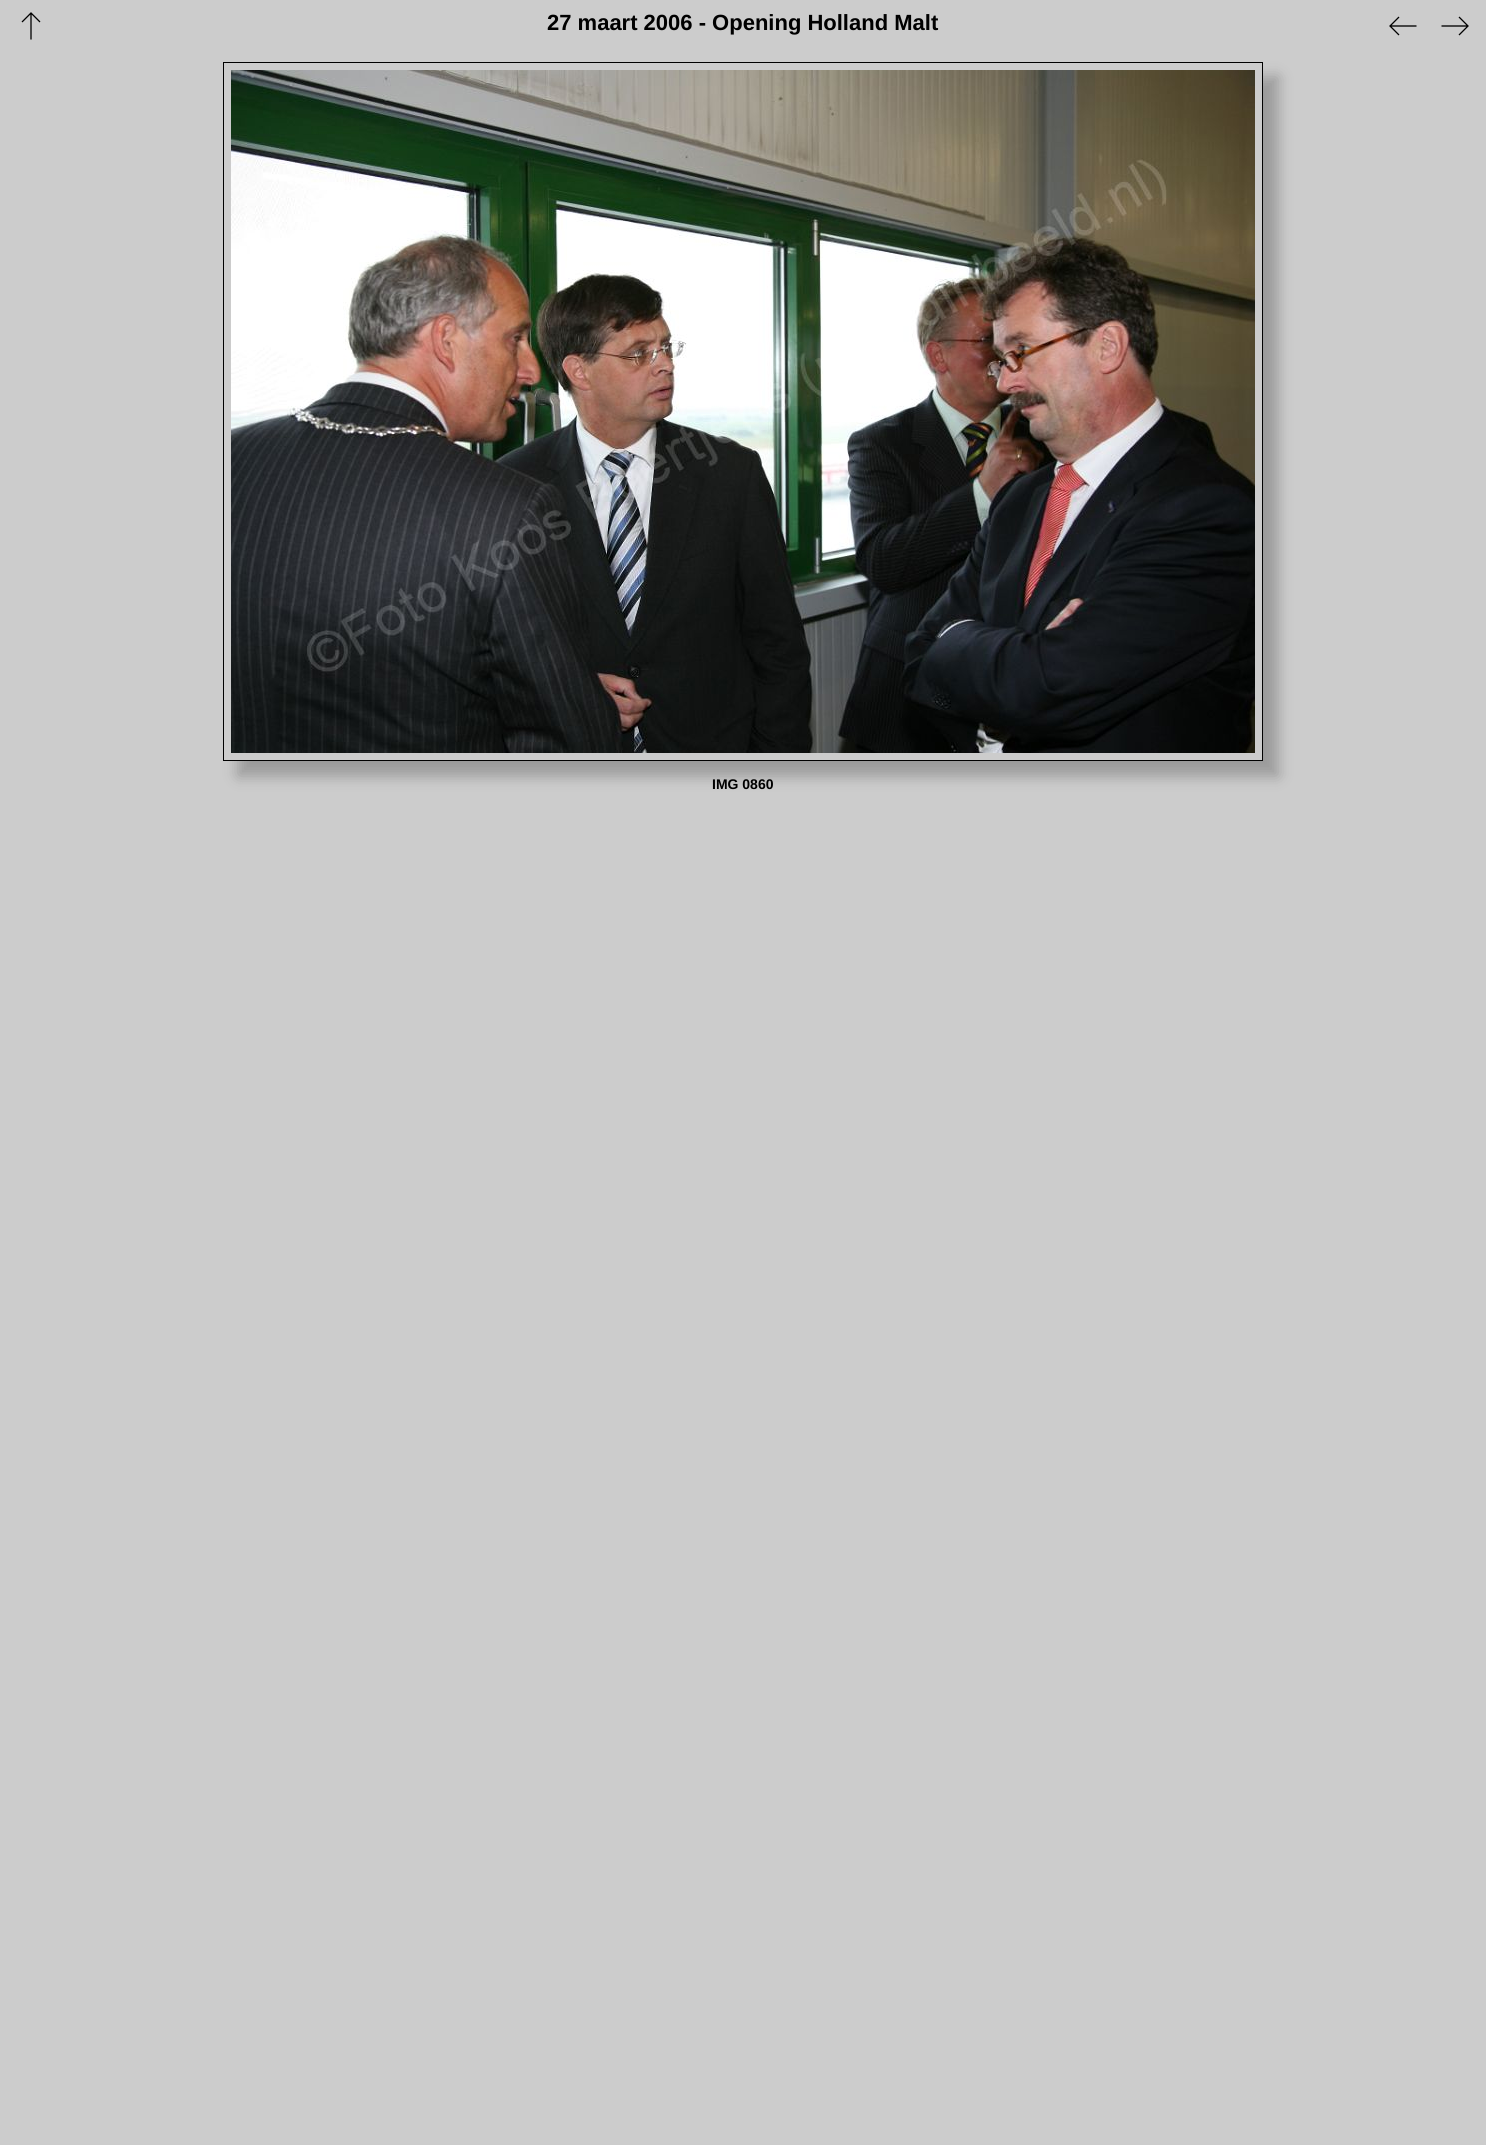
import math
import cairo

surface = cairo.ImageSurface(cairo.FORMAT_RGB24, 1486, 2145)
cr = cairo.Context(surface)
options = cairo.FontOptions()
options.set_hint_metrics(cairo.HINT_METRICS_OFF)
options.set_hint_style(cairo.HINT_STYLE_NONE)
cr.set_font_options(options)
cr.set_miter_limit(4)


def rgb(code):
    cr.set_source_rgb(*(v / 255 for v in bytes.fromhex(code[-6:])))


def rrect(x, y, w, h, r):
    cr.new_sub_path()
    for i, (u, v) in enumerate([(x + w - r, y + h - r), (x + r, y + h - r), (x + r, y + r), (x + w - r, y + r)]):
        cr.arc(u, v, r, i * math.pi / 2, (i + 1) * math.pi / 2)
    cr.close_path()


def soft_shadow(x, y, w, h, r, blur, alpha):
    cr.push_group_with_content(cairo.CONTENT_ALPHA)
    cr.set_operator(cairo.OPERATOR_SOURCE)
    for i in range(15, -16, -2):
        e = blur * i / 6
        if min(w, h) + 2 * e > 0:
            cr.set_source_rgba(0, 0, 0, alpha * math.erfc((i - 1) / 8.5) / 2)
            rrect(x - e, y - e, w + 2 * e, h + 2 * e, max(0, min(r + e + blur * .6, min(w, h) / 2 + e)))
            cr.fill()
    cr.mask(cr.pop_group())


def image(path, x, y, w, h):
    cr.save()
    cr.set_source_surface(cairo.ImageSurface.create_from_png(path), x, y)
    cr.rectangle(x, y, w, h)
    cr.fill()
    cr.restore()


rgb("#cccccc")
cr.paint()
cr.new_path()
cr.move_to(31, 39.5)
cr.line_to(31, 13)
cr.move_to(22, 22)
cr.line_to(31, 13)
cr.line_to(40, 22)
rgb("#000000")
cr.set_line_width(1.3)
cr.stroke()
cr.new_path()
cr.move_to(1416.5, 26)
cr.line_to(1390, 26)
cr.move_to(1399, 35)
cr.line_to(1390, 26)
cr.line_to(1399, 17)
cr.stroke()
cr.new_path()
cr.move_to(1441.5, 26)
cr.line_to(1468, 26)
cr.move_to(1459, 17)
cr.line_to(1468, 26)
cr.line_to(1459, 35)
cr.stroke()
cr.save()
cr.set_fill_rule(cairo.FILL_RULE_EVEN_ODD)
cr.new_path()
cr.move_to(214, 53)
cr.line_to(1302, 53)
cr.line_to(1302, 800)
cr.line_to(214, 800)
cr.close_path()
cr.move_to(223, 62)
cr.line_to(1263, 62)
cr.line_to(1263, 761)
cr.line_to(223, 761)
cr.close_path()
cr.clip()
rgb("#000000")
soft_shadow(238, 77, 1040, 699, 0, 7.5, 0.25)
cr.restore()
cr.rectangle(223.5, 62.5, 1039, 698)
cr.set_line_width(1)
cr.stroke()
image("img/1.png", 231, 70, 1024, 683)
cr.select_font_face("Liberation Sans", cairo.FONT_SLANT_NORMAL, cairo.FONT_WEIGHT_BOLD)
cr.set_font_size(22)
cr.move_to(547, 30)
cr.show_text("27 maart 2006 - Opening Holland Malt")
cr.set_font_size(14)
cr.move_to(712, 789)
cr.show_text("IMG 0860")
surface.write_to_png("page.png")
